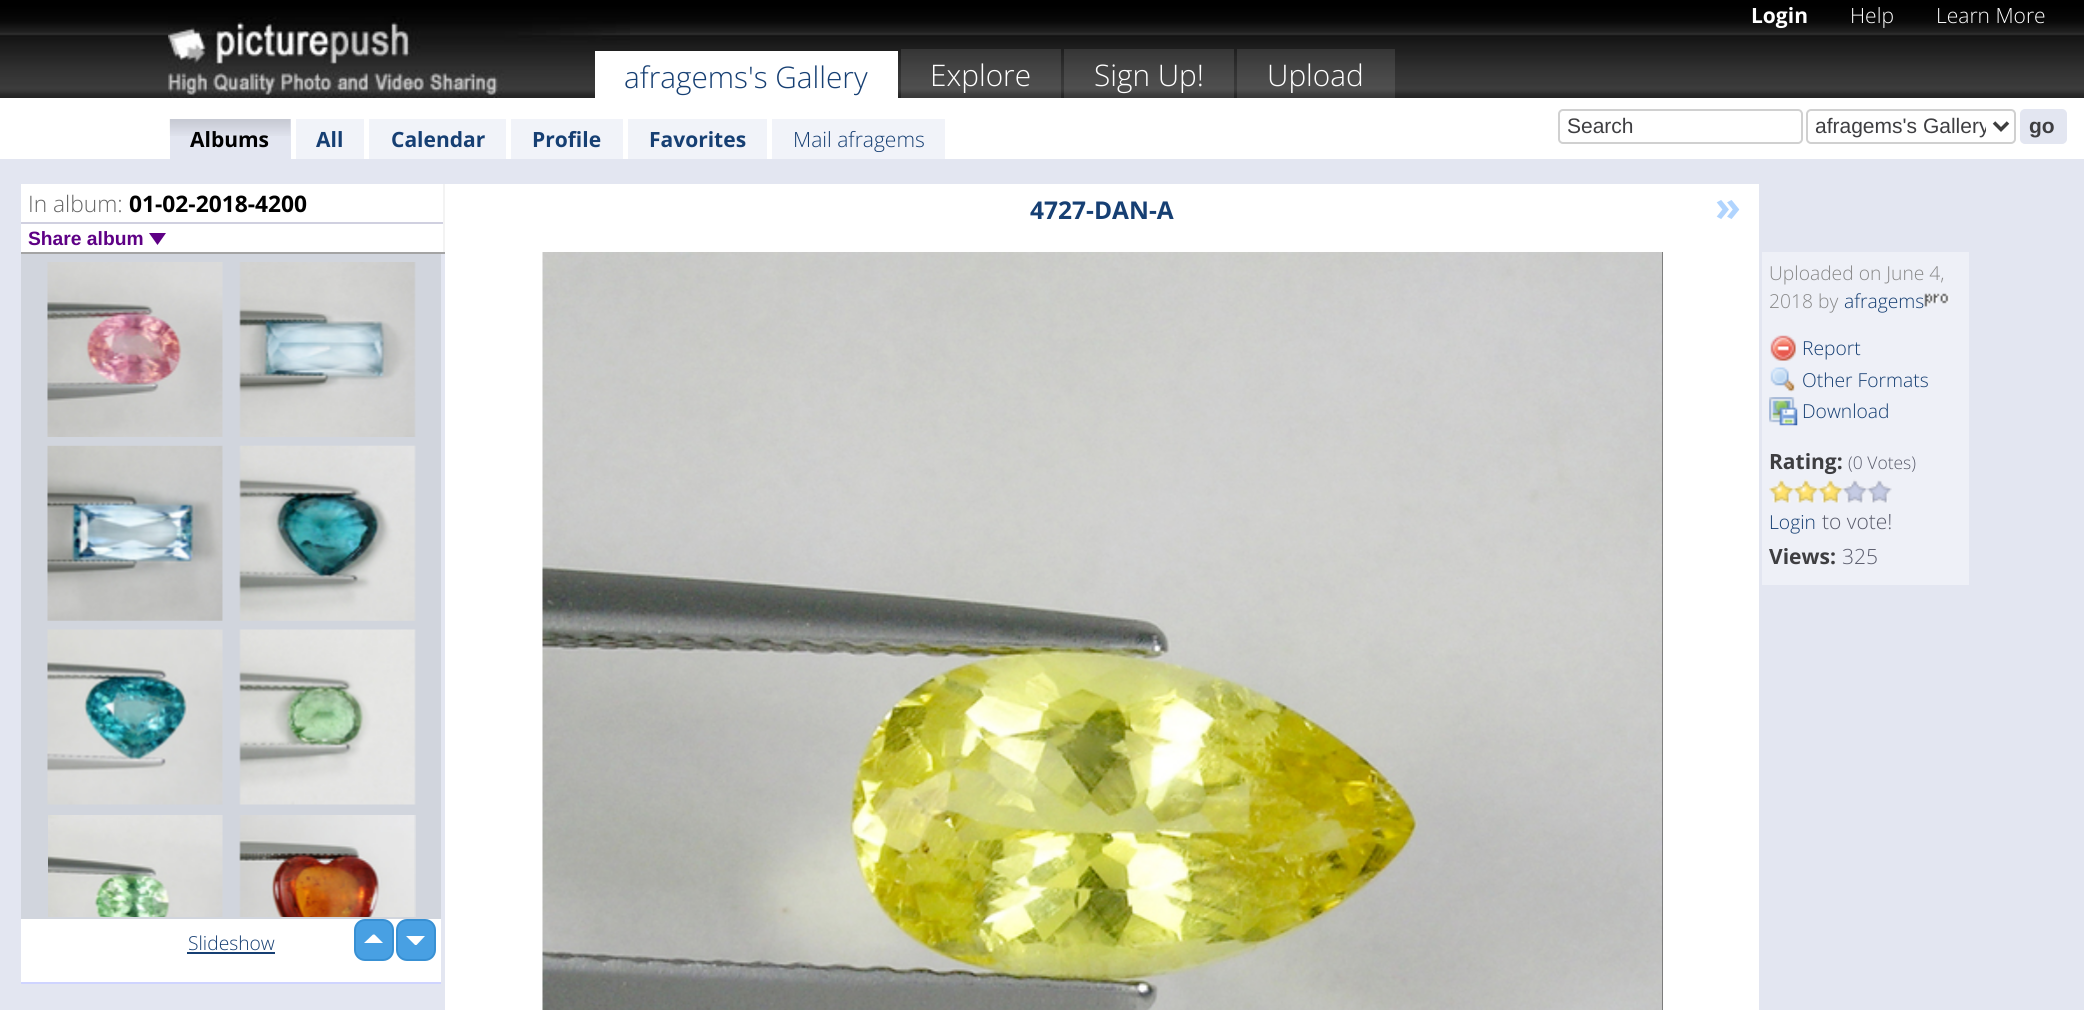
import math
import cairo

surface = cairo.ImageSurface(cairo.FORMAT_RGB24, 2084, 1010)
cr = cairo.Context(surface)
options = cairo.FontOptions()
options.set_hint_metrics(cairo.HINT_METRICS_OFF)
options.set_hint_style(cairo.HINT_STYLE_NONE)
cr.set_font_options(options)
cr.set_miter_limit(4)


def rgb(code):
    cr.set_source_rgb(*(v / 255 for v in bytes.fromhex(code[-6:])))


def rrect(x, y, w, h, r):
    cr.new_sub_path()
    for i, (u, v) in enumerate([(x + w - r, y + h - r), (x + r, y + h - r), (x + r, y + r), (x + w - r, y + r)]):
        cr.arc(u, v, r, i * math.pi / 2, (i + 1) * math.pi / 2)
    cr.close_path()


def image(path, x, y, w, h):
    cr.save()
    cr.set_source_surface(cairo.ImageSurface.create_from_png(path), x, y)
    cr.rectangle(x, y, w, h)
    cr.fill()
    cr.restore()


rgb("#e3e6f1")
cr.paint()
image("img/1.png", 0, 0, 2084, 98)
image("img/2.png", 168, 16, 462, 82)
rgb("#ffffff")
cr.rectangle(595, 51, 303, 47)
cr.fill()
cr.set_source_rgba(1, 1, 1, 0.1)
cr.rectangle(901, 49, 160, 49)
cr.fill()
cr.rectangle(1064, 49, 170, 49)
cr.fill()
cr.rectangle(1237, 49, 158, 49)
cr.fill()
rgb("#ffffff")
cr.rectangle(0, 98, 2084, 61)
cr.fill()
rrect(1559, 110, 243, 33, 4)
rgb("#d0d0d0")
cr.stroke()
rrect(1807, 110, 208, 33, 4)
cr.stroke()
cr.new_path()
cr.move_to(1994, 122.5)
cr.line_to(2001, 129.5)
cr.line_to(2008, 122.5)
rgb("#3e3e3e")
cr.set_line_width(3.5)
cr.stroke()
rgb("#e3e6f1")
rrect(2021, 110, 45, 33, 4)
cr.fill_preserve()
cr.set_line_width(2)
cr.stroke()
cr.rectangle(170, 119, 121, 40)
cr.fill()
image("img/3.png", 169, 119, 122, 17)
for x, y, w, h, color in [
    (296, 119, 68, 40, "#f1f3f9"),
    (369, 119, 137, 40, "#f1f3f9"),
    (511, 119, 112, 40, "#f1f3f9"),
    (628, 119, 139, 40, "#f1f3f9"),
    (772, 119, 173, 40, "#f1f3f9"),
    (21, 184, 422, 68, "#ffffff"),
    (443, 184, 2, 70, "#f3f3f3"),
    (21, 252, 424, 2, "#a4a4a4"),
    (21, 222, 422, 2, "#d0d0e0"),
]:
    rgb(color)
    cr.rectangle(x, y, w, h)
    cr.fill()
rgb("#5e0085")
cr.new_path()
cr.move_to(149, 233)
cr.line_to(166, 233)
cr.line_to(157.5, 245)
cr.close_path()
cr.fill()
rgb("#d1d5dd")
cr.rectangle(21, 254, 420, 665)
cr.fill()
rgb("#cfd4ff")
cr.rectangle(21, 982, 420, 2)
cr.fill()
image("img/4.png", 47, 262, 176, 175)
image("img/5.png", 239, 262, 177, 175)
image("img/6.png", 47, 445, 176, 176)
image("img/7.png", 239, 445, 177, 176)
image("img/8.png", 47, 629, 176, 176)
image("img/9.png", 239, 629, 177, 176)
image("img/10.png", 48, 815, 175, 102)
image("img/11.png", 239, 815, 177, 102)
rgb("#ffffff")
cr.rectangle(21, 919, 420, 63)
cr.fill()
rgb("#48a0e3")
rrect(355, 920, 38, 40, 10)
cr.fill_preserve()
rgb("#3890d3")
cr.stroke()
rgb("#48a0e3")
rrect(397, 920, 38, 40, 10)
cr.fill_preserve()
rgb("#3890d3")
cr.stroke()
rgb("#ffffff")
cr.new_path()
cr.move_to(383, 943)
cr.line_to(364, 943)
cr.line_to(373, 934.5)
cr.line_to(374.5, 934.5)
cr.close_path()
cr.move_to(406, 936)
cr.line_to(425, 936)
cr.line_to(416.5, 945)
cr.line_to(415, 945)
cr.close_path()
cr.fill()
for x, y, w, h, color in [
    (187, 952, 88, 2, "#163f73"),
    (445, 184, 1314, 826, "#ffffff"),
    (1662, 252, 1, 758, "#333333"),
]:
    rgb(color)
    cr.rectangle(x, y, w, h)
    cr.fill()
image("img/12.png", 542, 252, 1121, 758)
rgb("#eef0f7")
cr.rectangle(1762, 252, 207, 333)
cr.fill()
image("img/13.png", 1924, 293, 26, 14)
image("img/14.png", 1770, 335, 26, 26)
image("img/15.png", 1770, 367, 25, 25)
image("img/16.png", 1769, 397, 29, 29)
image("img/17.png", 1769, 479, 25, 24)
image("img/18.png", 1793, 479, 26, 24)
image("img/19.png", 1818, 479, 25, 24)
image("img/20.png", 1842, 479, 26, 24)
image("img/21.png", 1867, 480, 25, 23)
cr.select_font_face("Open Sans Light")
cr.set_font_size(29.75)
rgb("#163f73")
cr.move_to(624, 88)
cr.show_text("afragems's Gallery")
rgb("#ffffff")
for x, y, s in [
    (930, 86, "Explore"),
    (1094, 86, "Sign Up!"),
    (1267, 86, "Upload"),
]:
    cr.move_to(x, y)
    cr.show_text(s)
cr.select_font_face("Open Sans", cairo.FONT_SLANT_NORMAL, cairo.FONT_WEIGHT_BOLD)
cr.set_font_size(21)
cr.move_to(1751, 23)
cr.show_text("Login")
cr.select_font_face("Open Sans Light")
cr.move_to(1850, 23)
cr.show_text("Help")
cr.move_to(1936, 23)
cr.show_text("Learn More")
cr.select_font_face("Liberation Sans")
rgb("#3e3e41")
cr.move_to(1567, 133)
cr.show_text("Search")
cr.save()
cr.rectangle(1815, 112, 171, 28)
cr.clip()
cr.move_to(1815, 133)
cr.show_text("afragems's Gallery")
cr.restore()
cr.select_font_face("Liberation Sans", cairo.FONT_SLANT_NORMAL, cairo.FONT_WEIGHT_BOLD)
cr.move_to(2029, 133)
cr.show_text("go")
cr.select_font_face("Open Sans", cairo.FONT_SLANT_NORMAL, cairo.FONT_WEIGHT_BOLD)
rgb("#000000")
cr.move_to(190, 147)
cr.show_text("Albums")
rgb("#163f73")
for x, y, s in [
    (316, 147, "All"),
    (391, 147, "Calendar"),
    (532, 147, "Profile"),
    (649, 147, "Favorites"),
]:
    cr.move_to(x, y)
    cr.show_text(s)
cr.select_font_face("Open Sans Light")
cr.move_to(793, 147)
cr.show_text("Mail afragems")
cr.set_font_size(22.75)
rgb("#666666")
cr.move_to(28, 212)
cr.show_text("In album:")
cr.select_font_face("Open Sans", cairo.FONT_SLANT_NORMAL, cairo.FONT_WEIGHT_BOLD)
rgb("#000000")
cr.move_to(129, 212)
cr.show_text("01-02-2018-4200")
cr.select_font_face("Liberation Sans", cairo.FONT_SLANT_NORMAL, cairo.FONT_WEIGHT_BOLD)
cr.set_font_size(19.25)
rgb("#5e0085")
cr.move_to(28, 245)
cr.show_text("Share album")
cr.select_font_face("Open Sans Light")
rgb("#163f73")
cr.move_to(188, 950)
cr.show_text("Slideshow")
cr.select_font_face("Open Sans", cairo.FONT_SLANT_NORMAL, cairo.FONT_WEIGHT_BOLD)
cr.set_font_size(24.5)
cr.move_to(1030, 219)
cr.show_text("4727-DAN-A")
cr.set_font_size(42)
rgb("#b0d4fe")
cr.move_to(1715, 221)
cr.show_text("»")
cr.select_font_face("Open Sans Light")
cr.set_font_size(19.25)
rgb("#888888")
cr.move_to(1769, 280)
cr.show_text("Uploaded on June 4,")
cr.move_to(1769, 308)
cr.show_text("2018 by")
rgb("#163f73")
for x, y, s in [
    (1844, 308, "afragems"),
    (1802, 355, "Report"),
    (1802, 387, "Other Formats"),
    (1802, 418, "Download"),
]:
    cr.move_to(x, y)
    cr.show_text(s)
cr.select_font_face("Open Sans", cairo.FONT_SLANT_NORMAL, cairo.FONT_WEIGHT_BOLD)
cr.set_font_size(21)
rgb("#3e3e41")
cr.move_to(1769, 469)
cr.show_text("Rating:")
cr.select_font_face("Open Sans Light")
cr.set_font_size(17.5)
rgb("#5a5c6c")
cr.move_to(1848, 469)
cr.show_text("(0 Votes)")
cr.set_font_size(19.25)
rgb("#163f73")
cr.move_to(1769, 529)
cr.show_text("Login")
cr.set_font_size(21)
rgb("#5a5c6c")
cr.move_to(1822, 529)
cr.show_text("to vote!")
cr.select_font_face("Open Sans", cairo.FONT_SLANT_NORMAL, cairo.FONT_WEIGHT_BOLD)
rgb("#3e3e41")
cr.move_to(1769, 564)
cr.show_text("Views:")
cr.select_font_face("Open Sans Light")
rgb("#5a5c6c")
cr.move_to(1842, 564)
cr.show_text("325")
surface.write_to_png("page.png")
